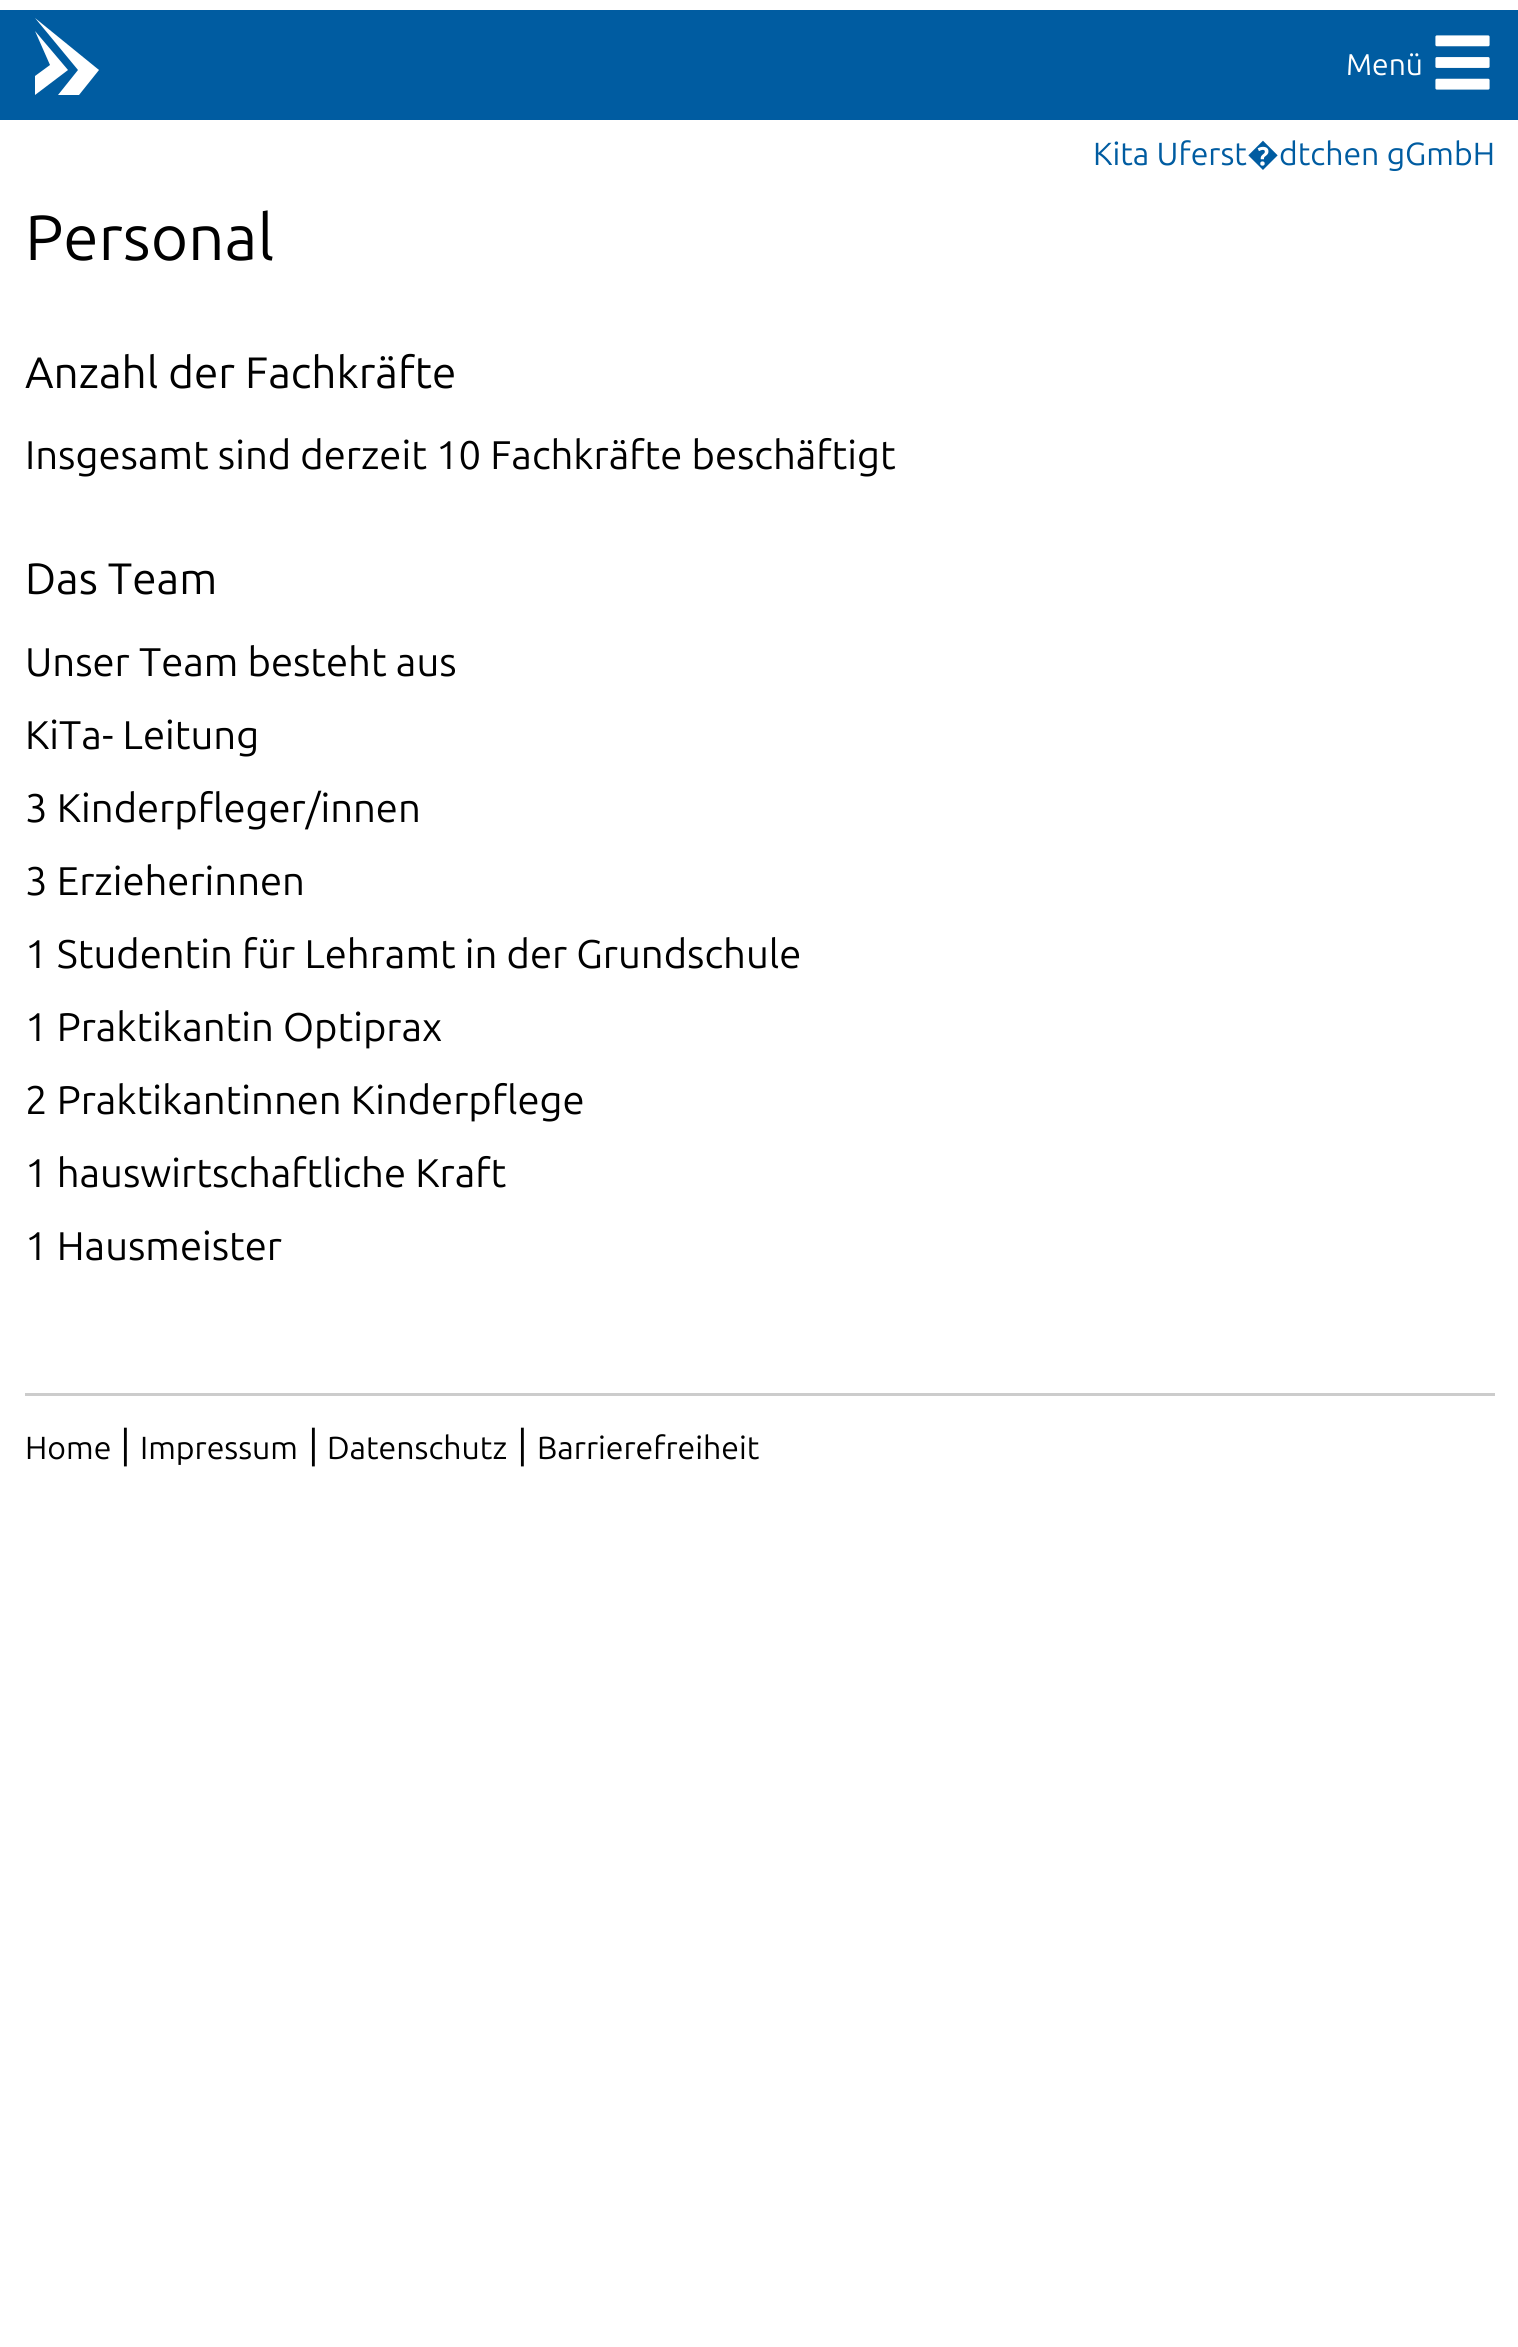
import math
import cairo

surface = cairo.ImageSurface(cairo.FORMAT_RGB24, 1518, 2347)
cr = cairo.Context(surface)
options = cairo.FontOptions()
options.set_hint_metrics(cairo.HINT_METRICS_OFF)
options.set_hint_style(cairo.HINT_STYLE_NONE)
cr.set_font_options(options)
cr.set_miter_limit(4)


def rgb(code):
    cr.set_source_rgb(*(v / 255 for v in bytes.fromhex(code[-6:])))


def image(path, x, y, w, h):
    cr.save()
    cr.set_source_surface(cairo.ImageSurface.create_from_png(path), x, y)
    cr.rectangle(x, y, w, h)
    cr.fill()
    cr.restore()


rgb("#ffffff")
cr.paint()
rgb("#005ca1")
cr.rectangle(0, 10, 1518, 110)
cr.fill()
rgb("#ffffff")
cr.new_path()
cr.move_to(35, 18)
cr.line_to(78, 70)
cr.line_to(58, 95)
cr.line_to(79, 95)
cr.line_to(99, 70)
cr.close_path()
cr.fill()
cr.new_path()
cr.move_to(35, 31)
cr.line_to(50, 65)
cr.line_to(35, 76)
cr.line_to(35, 95)
cr.line_to(68, 70)
cr.close_path()
cr.fill()
image("img/1.png", 1435, 35, 55, 55)
rgb("#cccccc")
cr.rectangle(25, 1393, 1470, 3)
cr.fill()
cr.select_font_face("Ubuntu")
cr.set_font_size(30)
rgb("#ffffff")
cr.move_to(1346, 75)
cr.show_text("Menü")
cr.set_font_size(32)
rgb("#005ca1")
cr.move_to(1093, 165)
cr.show_text("Kita Uferst")
cr.select_font_face("Noto Sans")
cr.move_to(1247, 165)
cr.show_text("�")
cr.select_font_face("Ubuntu")
cr.move_to(1279, 165)
cr.show_text("dtchen gGmbH")
cr.set_font_size(64)
rgb("#000000")
cr.move_to(25, 260)
cr.show_text("Personal")
cr.set_font_size(44)
cr.move_to(25, 388)
cr.show_text("Anzahl der Fachkräfte")
cr.set_font_size(40)
cr.move_to(25, 469)
cr.show_text("Insgesamt sind derzeit 10 Fachkräfte beschäftigt")
cr.set_font_size(44)
cr.move_to(25, 594)
cr.show_text("Das Team")
cr.set_font_size(40)
for x, y, s in [
    (25, 676, "Unser Team besteht aus"),
    (25, 749, "KiTa- Leitung"),
    (25, 822, "3 Kinderpfleger/innen"),
    (25, 895, "3 Erzieherinnen"),
    (25, 968, "1 Studentin für Lehramt in der Grundschule"),
    (25, 1041, "1 Praktikantin Optiprax"),
    (25, 1114, "2 Praktikantinnen Kinderpflege"),
    (25, 1187, "1 hauswirtschaftliche Kraft"),
    (25, 1260, "1 Hausmeister"),
]:
    cr.move_to(x, y)
    cr.show_text(s)
cr.set_font_size(32)
cr.move_to(25, 1459)
cr.show_text("Home")
cr.set_font_size(40)
cr.move_to(120, 1459)
cr.show_text("|")
cr.set_font_size(32)
cr.move_to(140, 1459)
cr.show_text("Impressum")
cr.set_font_size(40)
cr.move_to(308, 1459)
cr.show_text("|")
cr.set_font_size(32)
cr.move_to(327, 1459)
cr.show_text("Datenschutz")
cr.set_font_size(40)
cr.move_to(517, 1459)
cr.show_text("|")
cr.set_font_size(32)
cr.move_to(537, 1459)
cr.show_text("Barrierefreiheit")
surface.write_to_png("page.png")
